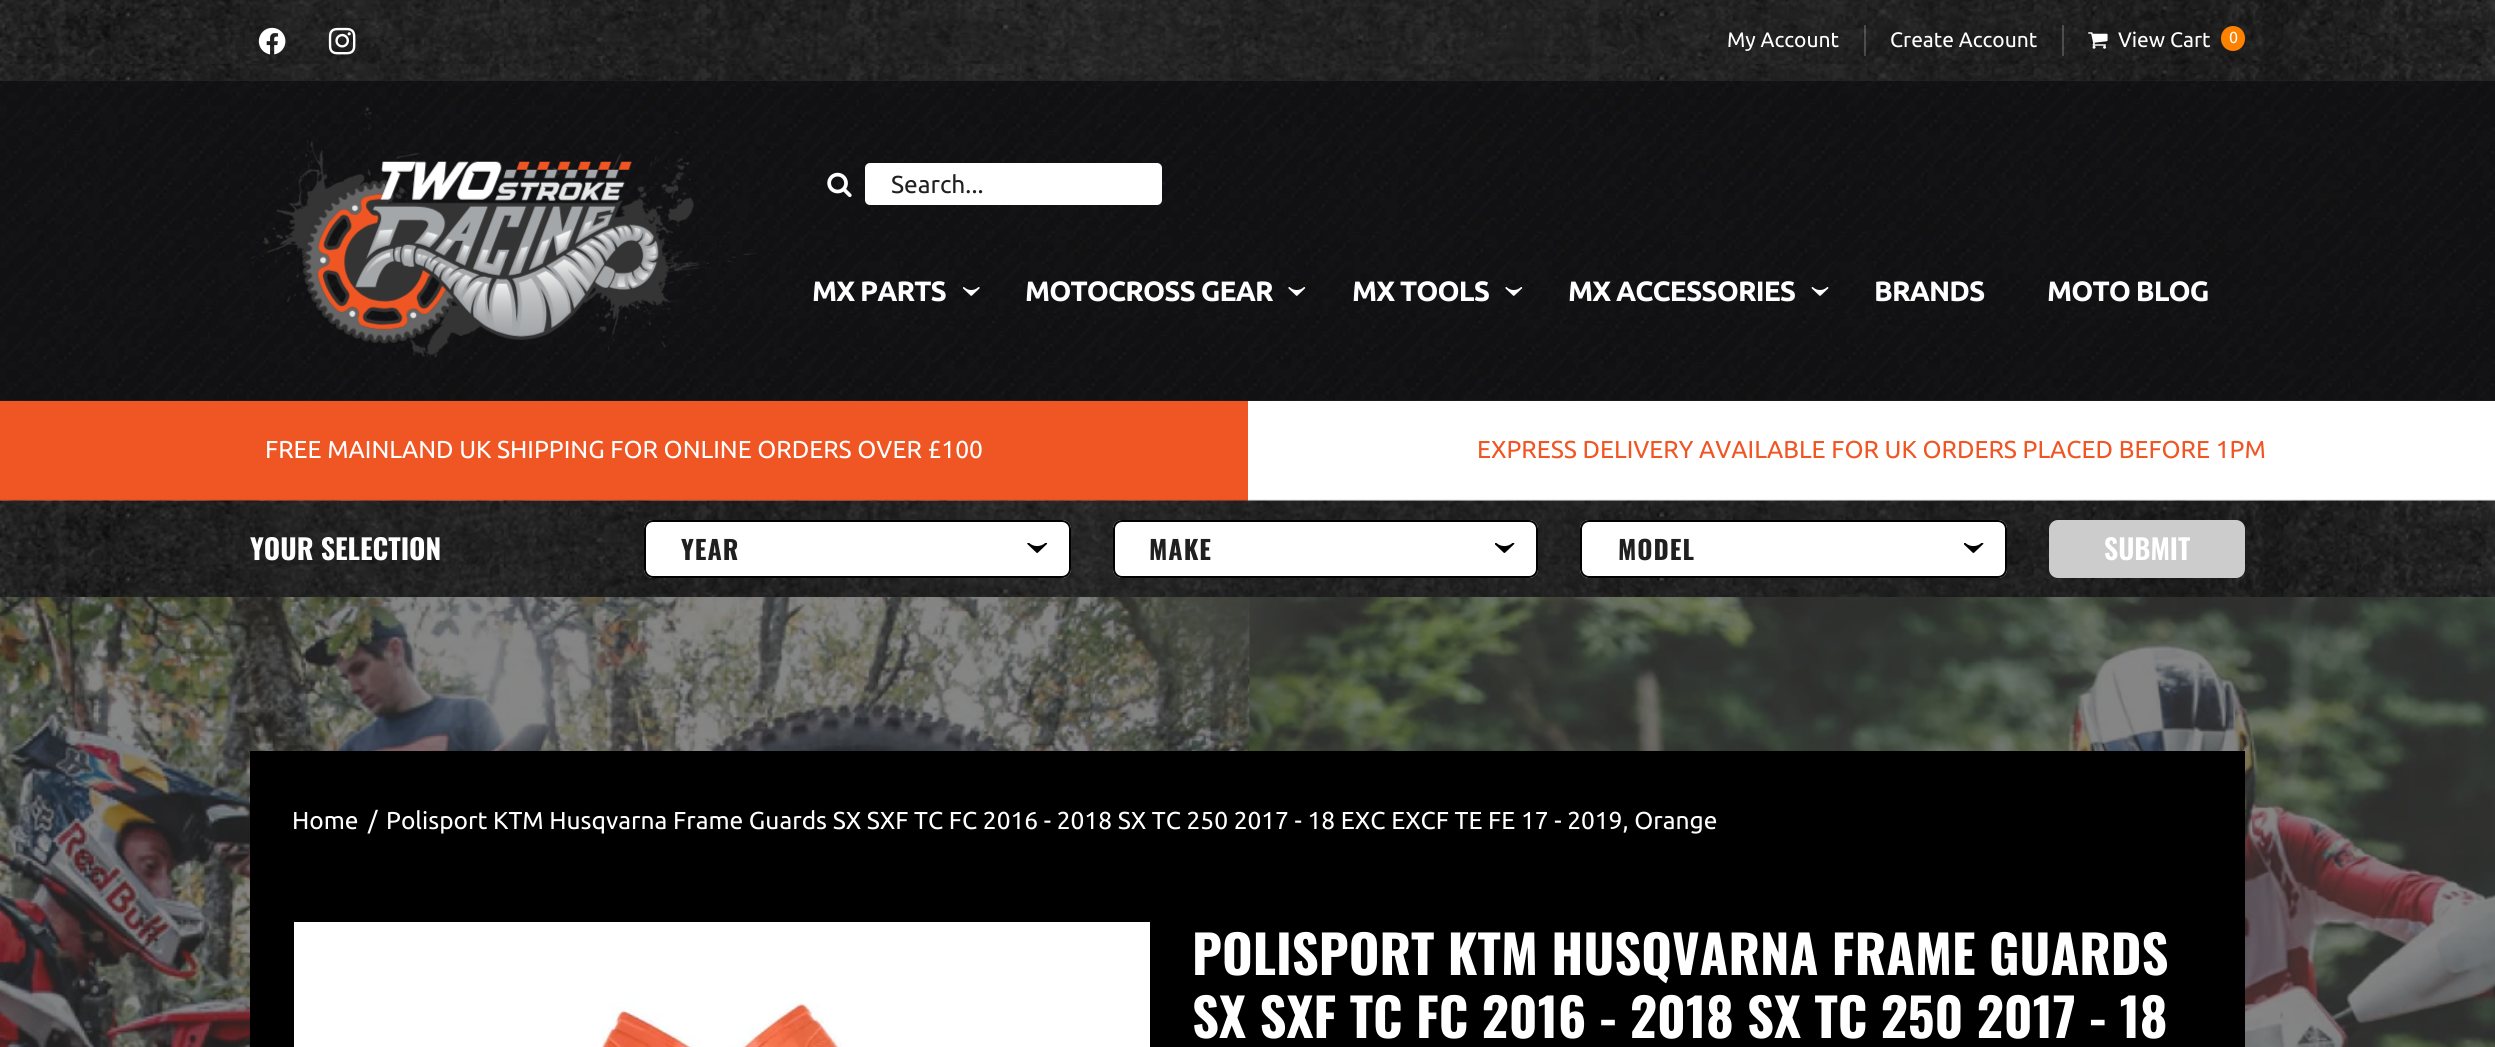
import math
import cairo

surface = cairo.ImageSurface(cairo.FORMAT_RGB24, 2495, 1047)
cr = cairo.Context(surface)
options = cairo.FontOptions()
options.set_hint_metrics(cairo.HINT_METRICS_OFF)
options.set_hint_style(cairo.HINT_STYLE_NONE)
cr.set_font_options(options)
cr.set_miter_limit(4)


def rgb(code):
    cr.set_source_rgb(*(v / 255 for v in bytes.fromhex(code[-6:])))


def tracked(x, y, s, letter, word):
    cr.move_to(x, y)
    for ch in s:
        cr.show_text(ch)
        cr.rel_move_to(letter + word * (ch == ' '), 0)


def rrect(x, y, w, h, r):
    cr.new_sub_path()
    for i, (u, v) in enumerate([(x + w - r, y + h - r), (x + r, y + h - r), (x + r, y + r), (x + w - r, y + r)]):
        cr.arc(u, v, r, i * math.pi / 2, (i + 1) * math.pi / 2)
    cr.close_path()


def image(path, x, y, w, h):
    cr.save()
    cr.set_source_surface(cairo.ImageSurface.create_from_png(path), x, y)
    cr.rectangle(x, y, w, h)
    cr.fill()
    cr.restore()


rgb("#353535")
cr.paint()
image("img/5.png", 0, 80, 2495, 321)
image("img/1.png", 0, 0, 2495, 81)
image("img/2.png", 258, 27, 28, 28)
image("img/3.png", 328, 27, 28, 28)
cr.set_source_rgba(1, 1, 1, 0.2)
cr.rectangle(1864, 25, 2, 31)
cr.fill()
cr.rectangle(2062, 25, 2, 31)
cr.fill()
image("img/4.png", 2088, 32, 20, 17)
rgb("#ff8100")
rrect(2221, 26, 24, 25, 12)
cr.fill()
image("img/6.png", 250, 107, 524, 268)
image("img/7.png", 827, 172, 25, 26)
rgb("#ffffff")
rrect(865, 163, 297, 42, 5)
cr.fill()
image("img/8.png", 963, 287, 17, 9)
image("img/9.png", 1288, 287, 18, 9)
image("img/10.png", 1505, 287, 18, 9)
image("img/11.png", 1811, 287, 18, 9)
rgb("#f05623")
cr.rectangle(0, 401, 1248, 100)
cr.fill()
rgb("#ffffff")
cr.rectangle(1248, 401, 1247, 100)
cr.fill()
image("img/12.png", 0, 500, 2495, 547)
image("img/13.png", 0, 499, 2495, 98)
rrect(644, 520, 427, 58, 9)
cr.fill()
image("img/14.png", 1027, 543, 21, 10)
rrect(645, 521, 425, 56, 8)
rgb("#000000")
cr.stroke()
rgb("#ffffff")
rrect(1113, 520, 425, 58, 9)
cr.fill()
image("img/15.png", 1495, 543, 20, 10)
rrect(1114, 521, 423, 56, 8)
rgb("#000000")
cr.stroke()
rgb("#ffffff")
rrect(1580, 520, 427, 58, 9)
cr.fill()
image("img/15.png", 1964, 543, 20, 10)
rrect(1581, 521, 425, 56, 8)
rgb("#000000")
cr.stroke()
rgb("#cccccc")
rrect(2050, 521, 194, 56, 8)
cr.fill_preserve()
cr.stroke()
rgb("#000000")
cr.rectangle(250, 751, 1995, 296)
cr.fill()
rgb("#ffffff")
cr.rectangle(294, 922, 856, 125)
cr.fill()
image("img/16.png", 601, 1002, 241, 45)
cr.select_font_face("Ubuntu")
cr.set_font_size(21)
for x, y, s in [
    (1727, 47, "My Account"),
    (1890, 47, "Create Account"),
    (2118, 47, "View Cart"),
]:
    cr.move_to(x, y)
    cr.show_text(s)
cr.set_font_size(16)
cr.move_to(2229, 43)
cr.show_text("0")
cr.set_font_size(24.5)
rgb("#202020")
cr.move_to(891, 193)
cr.show_text("Search...")
cr.select_font_face("Ubuntu", cairo.FONT_SLANT_NORMAL, cairo.FONT_WEIGHT_BOLD)
cr.set_font_size(28)
rgb("#ffffff")
for x, y, s in [
    (812, 301, "MX PARTS"),
    (1025, 301, "MOTOCROSS GEAR"),
    (1352, 301, "MX TOOLS"),
    (1568, 301, "MX ACCESSORIES"),
    (1874, 301, "BRANDS"),
    (2047, 301, "MOTO BLOG"),
]:
    tracked(x, y, s, -0.9, 0)
cr.select_font_face("Ubuntu")
cr.set_font_size(24.5)
cr.move_to(265, 458)
cr.show_text("FREE MAINLAND UK SHIPPING FOR ONLINE ORDERS OVER £100")
rgb("#f05623")
cr.move_to(1477, 458)
cr.show_text("EXPRESS DELIVERY AVAILABLE FOR UK ORDERS PLACED BEFORE 1PM")
cr.select_font_face("Oswald", cairo.FONT_SLANT_NORMAL, cairo.FONT_WEIGHT_BOLD)
cr.set_font_size(28)
rgb("#ffffff")
cr.move_to(250, 560)
cr.show_text("YOUR SELECTION")
cr.set_font_size(26)
rgb("#202020")
for x, y, s in [
    (681, 560, "YEAR"),
    (1149, 560, "MAKE"),
    (1618, 560, "MODEL"),
]:
    tracked(x, y, s, 1, 0)
cr.select_font_face("Oswald SemiBold")
cr.set_font_size(28)
rgb("#ffffff")
cr.move_to(2104, 560)
cr.show_text("SUBMIT")
cr.select_font_face("Ubuntu")
cr.set_font_size(24.5)
for x, y, s in [
    (292, 829, "Home"),
    (368, 829, "/"),
    (386, 829, "Polisport KTM Husqvarna Frame Guards SX SXF TC FC 2016 - 2018 SX TC 250 2017 - 18 EXC EXCF TE FE 17 - 2019, Orange"),
]:
    cr.move_to(x, y)
    cr.show_text(s)
cr.select_font_face("Oswald", cairo.FONT_SLANT_NORMAL, cairo.FONT_WEIGHT_BOLD)
cr.set_font_size(52.5)
cr.move_to(1192, 975)
cr.show_text("POLISPORT KTM HUSQVARNA FRAME GUARDS")
cr.move_to(1192, 1038)
cr.show_text("SX SXF TC FC 2016 - 2018 SX TC 250 2017 - 18")
surface.write_to_png("page.png")
